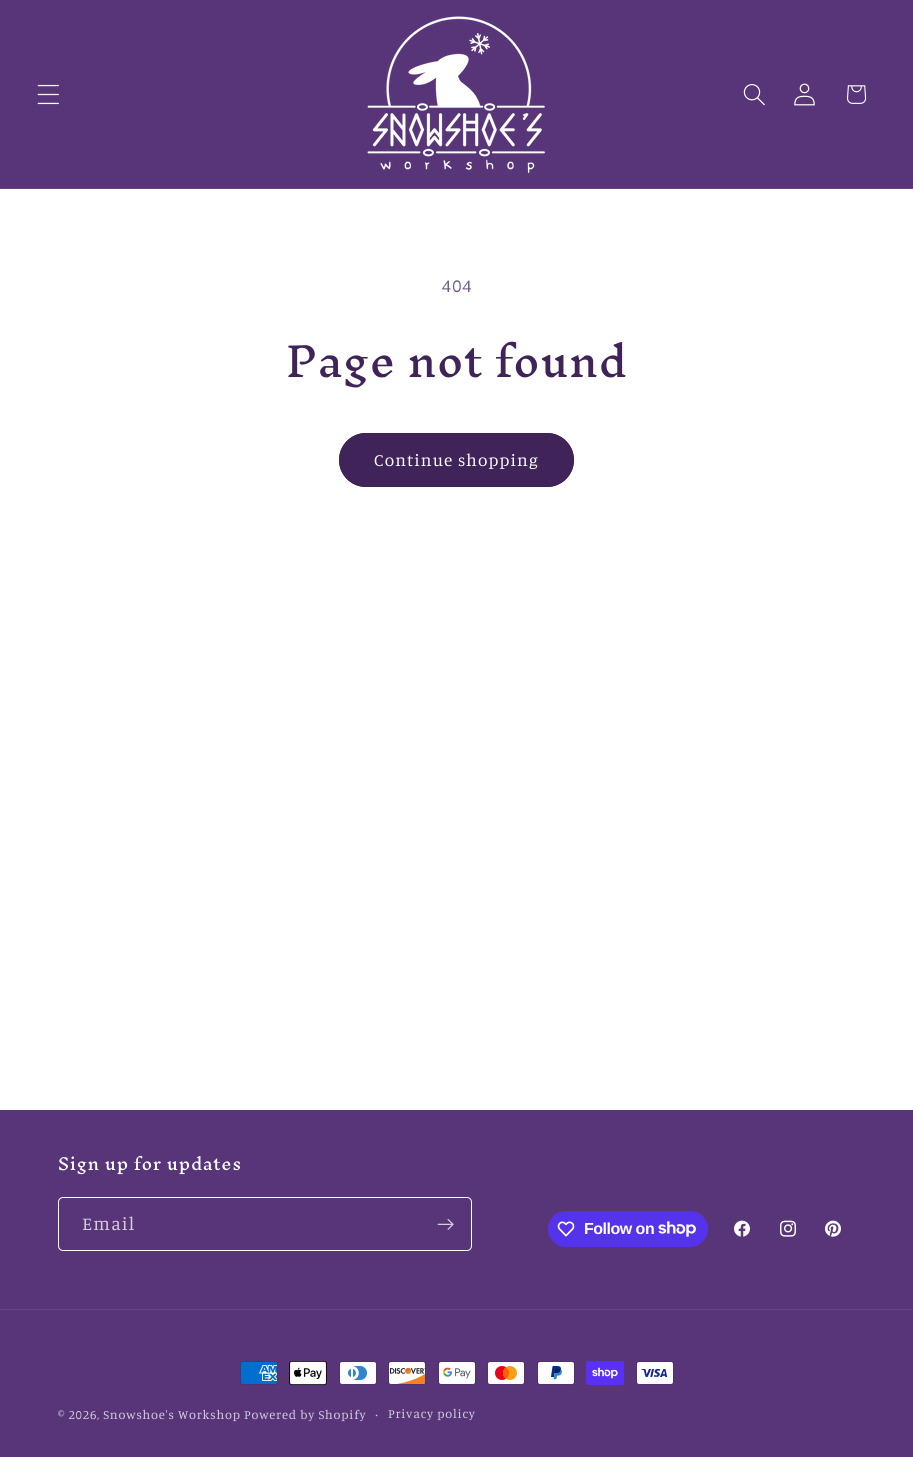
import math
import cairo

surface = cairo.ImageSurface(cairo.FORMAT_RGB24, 913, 1457)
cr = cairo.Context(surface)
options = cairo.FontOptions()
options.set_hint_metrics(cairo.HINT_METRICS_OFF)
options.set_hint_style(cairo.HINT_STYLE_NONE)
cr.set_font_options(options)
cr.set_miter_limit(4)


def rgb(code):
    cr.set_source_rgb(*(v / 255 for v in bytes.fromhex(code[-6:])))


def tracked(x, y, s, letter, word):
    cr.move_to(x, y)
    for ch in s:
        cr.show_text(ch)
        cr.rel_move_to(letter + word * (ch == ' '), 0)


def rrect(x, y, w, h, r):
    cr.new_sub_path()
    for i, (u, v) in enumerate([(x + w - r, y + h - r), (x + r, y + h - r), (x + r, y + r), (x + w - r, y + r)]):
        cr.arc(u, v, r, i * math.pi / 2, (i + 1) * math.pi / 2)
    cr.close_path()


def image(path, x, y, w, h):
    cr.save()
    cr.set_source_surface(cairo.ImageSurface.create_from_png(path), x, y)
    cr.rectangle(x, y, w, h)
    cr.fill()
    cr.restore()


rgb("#ffffff")
cr.paint()
rgb("#583579")
cr.rectangle(0, 0, 913, 188)
cr.fill()
rgb("#654584")
cr.rectangle(0, 188, 913, 1)
cr.fill()
image("img/1.png", 37, 84, 22, 21)
image("img/2.png", 367, 16, 178, 158)
image("img/3.png", 743, 84, 22, 22)
image("img/4.png", 794, 83, 21, 23)
image("img/5.png", 847, 85, 20, 19)
rgb("#3f2359")
rrect(339, 433, 235, 54, 27)
cr.fill()
rrect(339.5, 433.5, 234, 53, 26.5)
cr.set_line_width(1)
cr.stroke()
rgb("#583579")
cr.rectangle(0, 1110, 913, 347)
cr.fill()
rrect(58.5, 1197.5, 413, 53, 4.5)
rgb("#ffffff")
cr.stroke()
image("img/6.png", 437, 1218, 17, 12)
rgb("#5433eb")
rrect(548, 1211, 160, 36, 18)
cr.fill()
image("img/7.png", 557, 1221, 18, 16)
image("img/8.png", 658, 1221, 38, 16)
image("img/9.png", 734, 1220, 16, 17)
image("img/10.png", 780, 1220, 16, 17)
image("img/11.png", 825, 1220, 16, 17)
rgb("#654584")
cr.rectangle(0, 1309, 913, 1)
cr.fill()
image("img/12.png", 240, 1361, 38, 24)
image("img/13.png", 289, 1361, 38, 24)
image("img/14.png", 339, 1361, 38, 24)
image("img/15.png", 388, 1361, 38, 24)
image("img/16.png", 438, 1361, 38, 24)
image("img/17.png", 487, 1361, 38, 24)
image("img/18.png", 537, 1361, 38, 24)
image("img/19.png", 586, 1361, 38, 24)
image("img/20.png", 636, 1361, 38, 24)
cr.select_font_face("Manuale")
cr.set_font_size(18.5)
rgb("#6f5a83")
tracked(442, 292, "404", 1, 0)
cr.select_font_face("Inknut Antiqua")
cr.set_font_size(40)
rgb("#3f2359")
tracked(286, 377, "Page not found", 0.6, 0)
cr.select_font_face("Manuale")
cr.set_font_size(17.25)
rgb("#ffffff")
tracked(374, 466, "Continue shopping", 1.1, 0)
cr.select_font_face("Inknut Antiqua")
cr.set_font_size(16)
tracked(58, 1170, "Sign up for updates", 0.6, 0)
cr.select_font_face("Manuale")
cr.set_font_size(18.5)
rgb("#d5cdde")
tracked(82, 1230, "Email", 1.1, 0)
cr.select_font_face("Liberation Sans", cairo.FONT_SLANT_NORMAL, cairo.FONT_WEIGHT_BOLD)
cr.set_font_size(16)
rgb("#ffffff")
tracked(584, 1234, "Follow on", -0.5, 0)
cr.select_font_face("Manuale")
cr.set_font_size(12.65)
rgb("#d5cdde")
tracked(58, 1419, "© 2026, Snowshoe's Workshop Powered by Shopify", 0.8, 0)
cr.set_font_size(14)
tracked(375, 1419, "·", 0.8, 0)
cr.set_font_size(12.65)
tracked(388, 1418, "Privacy policy", 0.8, 0)
surface.write_to_png("page.png")
